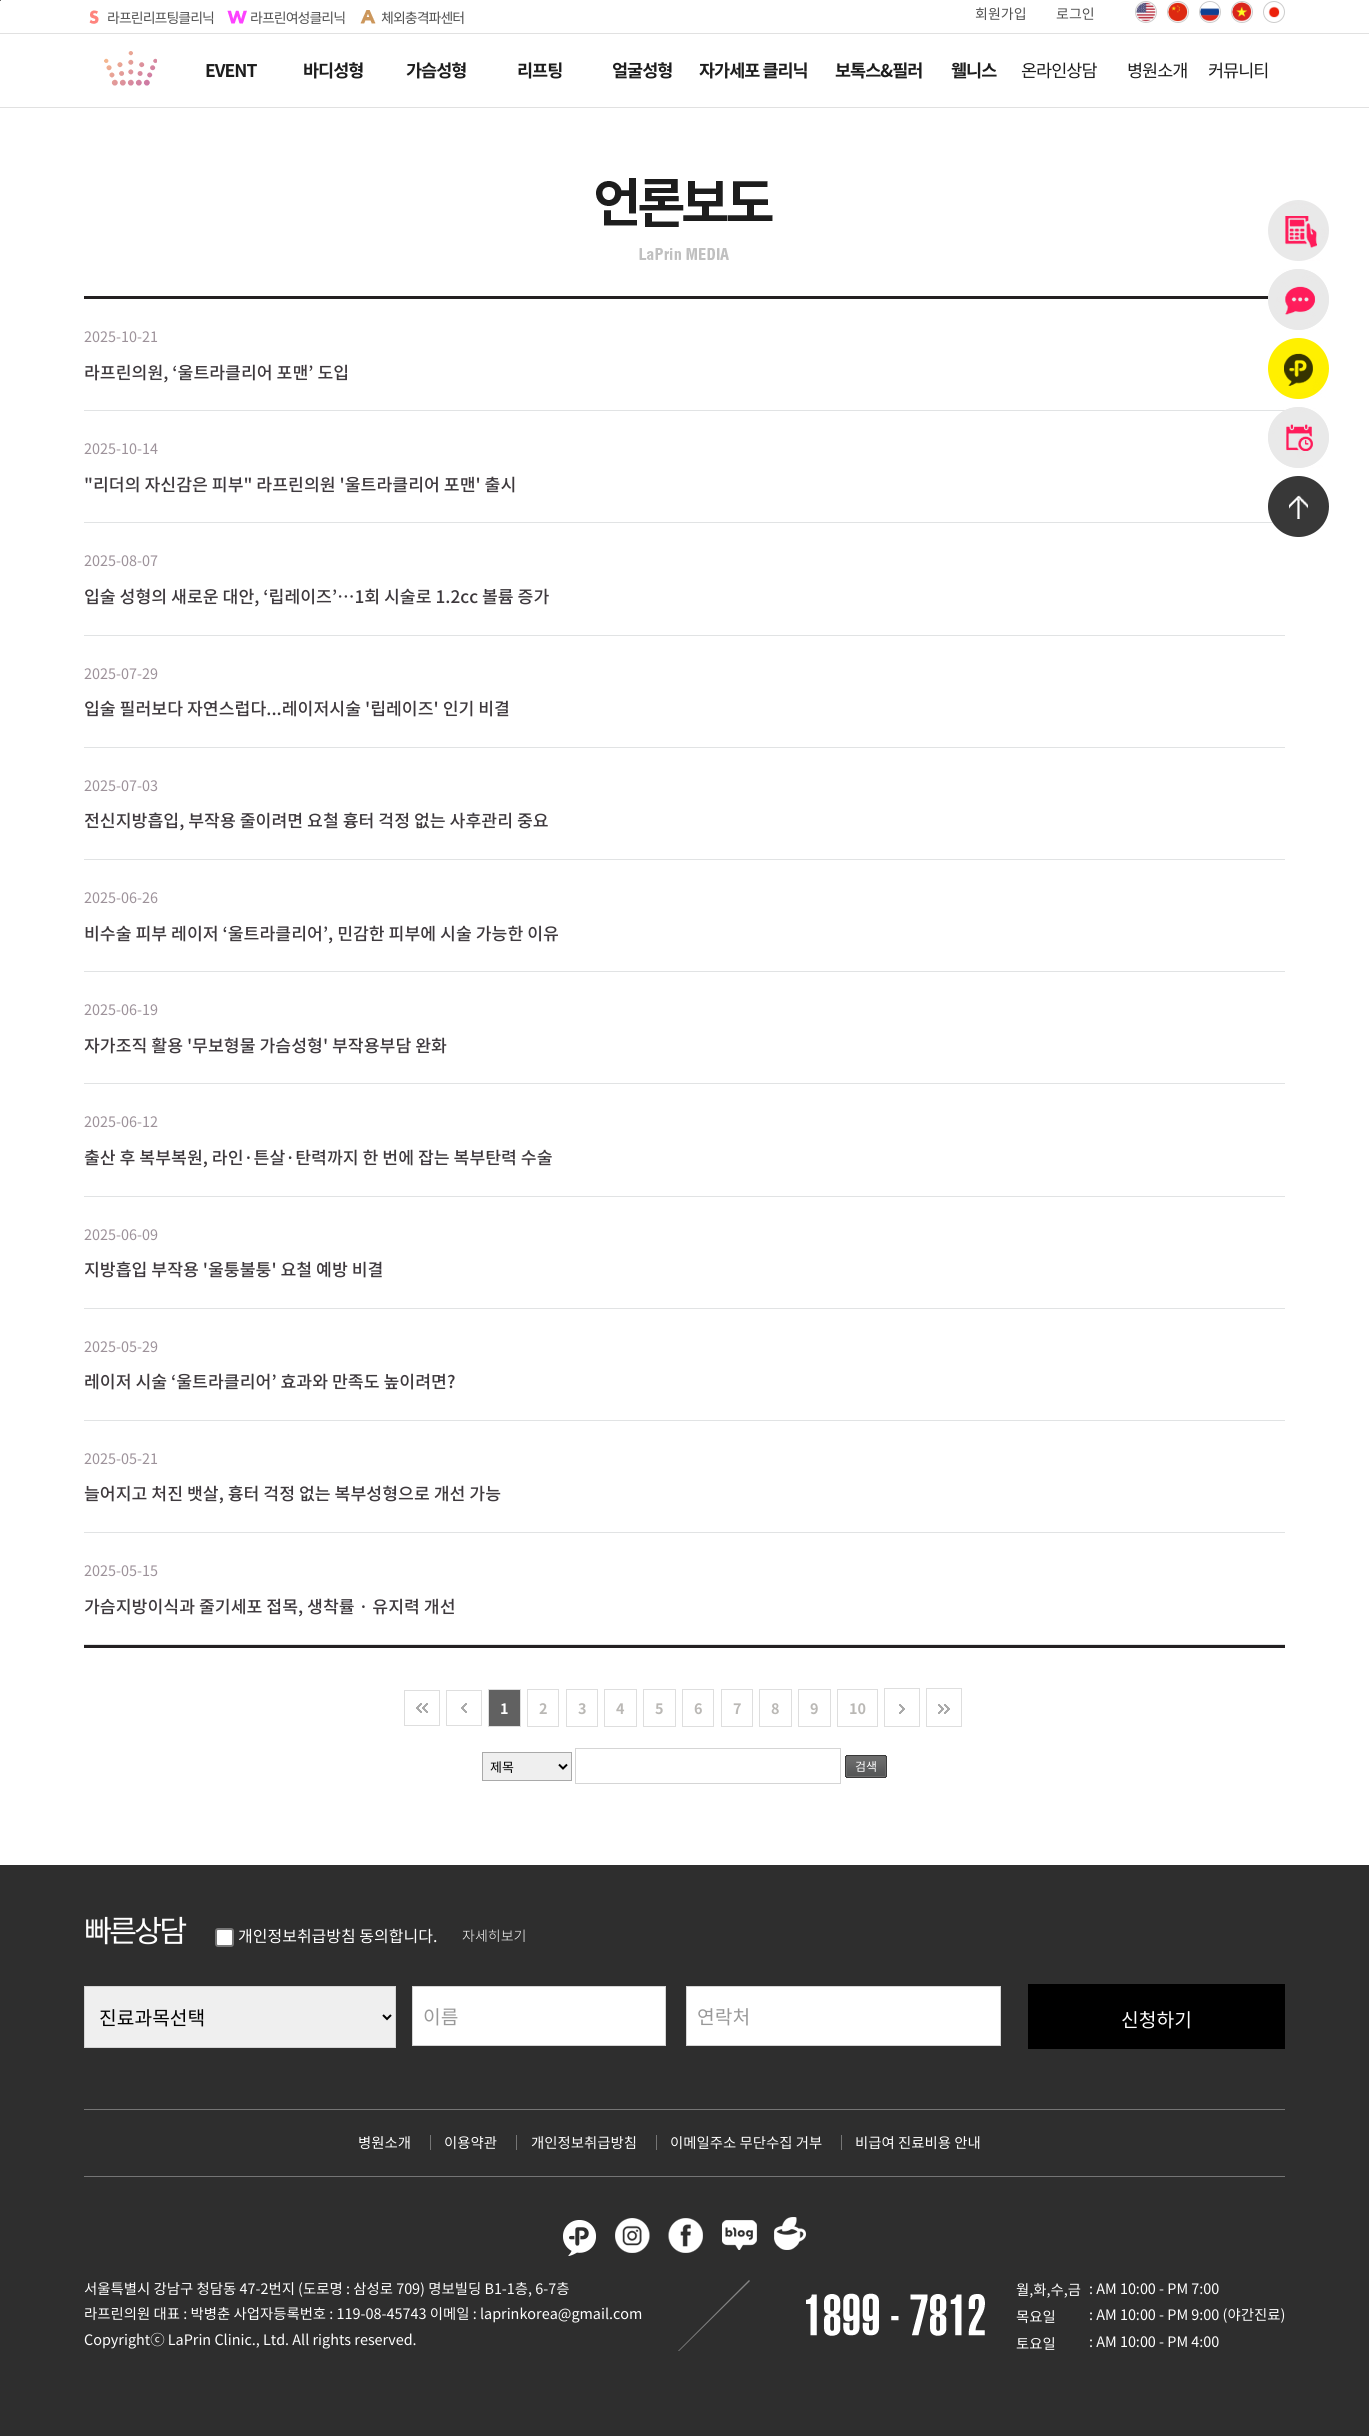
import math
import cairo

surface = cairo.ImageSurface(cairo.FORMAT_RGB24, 1369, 2436)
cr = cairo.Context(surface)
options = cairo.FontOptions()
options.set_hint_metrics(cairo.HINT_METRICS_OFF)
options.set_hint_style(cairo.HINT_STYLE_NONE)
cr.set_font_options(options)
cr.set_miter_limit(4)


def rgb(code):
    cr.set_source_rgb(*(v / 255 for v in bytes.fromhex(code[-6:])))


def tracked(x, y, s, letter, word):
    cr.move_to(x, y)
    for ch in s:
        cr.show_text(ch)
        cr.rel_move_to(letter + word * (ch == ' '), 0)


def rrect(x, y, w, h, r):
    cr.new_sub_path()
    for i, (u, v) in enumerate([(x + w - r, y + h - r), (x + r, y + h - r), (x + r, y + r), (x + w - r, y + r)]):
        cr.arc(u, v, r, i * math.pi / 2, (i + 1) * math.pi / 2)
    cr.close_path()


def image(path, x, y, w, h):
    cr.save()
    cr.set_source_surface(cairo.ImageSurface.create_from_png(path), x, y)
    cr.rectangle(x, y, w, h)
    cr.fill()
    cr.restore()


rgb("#ffffff")
cr.paint()
rgb("#666666")
cr.rectangle(0, 0, 1, 1)
cr.fill()
rgb("#e1e1e1")
cr.rectangle(0, 33, 1369, 1)
cr.fill()
image("img/1.png", 89, 10, 10, 14)
image("img/2.png", 227, 10, 20, 14)
image("img/3.png", 360, 10, 16, 14)
cr.arc(1146, 12, 10.5, 0, 2 * math.pi)
rgb("#cccccc")
cr.set_line_width(1)
cr.stroke()
image("img/4.png", 1136, 2, 20, 20)
cr.arc(1178, 12, 10.5, 0, 2 * math.pi)
cr.stroke()
image("img/5.png", 1168, 2, 20, 20)
cr.arc(1210, 12, 10.5, 0, 2 * math.pi)
cr.stroke()
image("img/6.png", 1200, 2, 20, 20)
cr.arc(1242, 12, 10.5, 0, 2 * math.pi)
cr.stroke()
image("img/7.png", 1232, 2, 20, 20)
cr.arc(1274, 12, 10.5, 0, 2 * math.pi)
cr.stroke()
image("img/8.png", 1268, 6, 12, 12)
rgb("#e1e1e1")
cr.rectangle(0, 107, 1369, 1)
cr.fill()
image("img/9.png", 104, 51, 53, 35)
image("img/10.png", 596, 178, 177, 82)
for x, y, w, h, color in [
    (84, 296, 1185, 3, "#232021"),
    (84, 1645, 1201, 3, "#232021"),
    (84, 410, 1201, 1, "#e1e3e4"),
    (84, 522, 1189, 1, "#e1e3e4"),
    (84, 635, 1201, 1, "#e1e3e4"),
    (84, 747, 1201, 1, "#e1e3e4"),
    (84, 859, 1201, 1, "#e1e3e4"),
    (84, 971, 1201, 1, "#e1e3e4"),
    (84, 1083, 1201, 1, "#e1e3e4"),
    (84, 1196, 1201, 1, "#e1e3e4"),
    (84, 1308, 1201, 1, "#e1e3e4"),
    (84, 1420, 1201, 1, "#e1e3e4"),
    (84, 1532, 1201, 1, "#e1e3e4"),
    (84, 1644, 1201, 1, "#e1e3e4"),
]:
    rgb(color)
    cr.rectangle(x, y, w, h)
    cr.fill()
cr.rectangle(404.5, 1690.5, 35, 35)
rgb("#dedede")
cr.stroke()
image("img/11.png", 416, 1703, 12, 10)
cr.rectangle(446.5, 1690.5, 35, 35)
cr.stroke()
image("img/12.png", 461, 1703, 6, 10)
rgb("#616161")
cr.rectangle(488.5, 1689.5, 32, 37)
cr.fill_preserve()
rgb("#dedede")
cr.stroke()
cr.rectangle(527.5, 1689.5, 31, 37)
cr.stroke()
cr.rectangle(566.5, 1689.5, 31, 37)
cr.stroke()
cr.rectangle(604.5, 1689.5, 32, 37)
cr.stroke()
cr.rectangle(643.5, 1689.5, 32, 37)
cr.stroke()
cr.rectangle(682.5, 1689.5, 31, 37)
cr.stroke()
cr.rectangle(721.5, 1689.5, 31, 37)
cr.stroke()
cr.rectangle(759.5, 1689.5, 32, 37)
cr.stroke()
cr.rectangle(798.5, 1689.5, 32, 37)
cr.stroke()
cr.rectangle(837.5, 1689.5, 40, 37)
cr.stroke()
cr.rectangle(884.5, 1688.5, 35, 38)
cr.stroke()
image("img/13.png", 899, 1704, 6, 10)
cr.rectangle(926.5, 1688.5, 35, 38)
cr.stroke()
image("img/14.png", 938, 1704, 12, 10)
rgb("#efefef")
cr.rectangle(482.5, 1752.5, 89, 28)
cr.fill_preserve()
rgb("#a9a9a9")
cr.stroke()
cr.new_path()
cr.move_to(559, 1764.5)
cr.line_to(563, 1768.5)
cr.line_to(567, 1764.5)
rgb("#000000")
cr.set_line_width(2)
cr.stroke()
cr.rectangle(575.5, 1748.5, 265, 35)
rgb("#d5d5d5")
cr.set_line_width(1)
cr.stroke()
image("img/15.png", 845, 1755, 40, 23)
image("img/16.png", 885, 1755, 2, 23)
image("img/17.png", 1268, 200, 61, 61)
image("img/18.png", 1268, 269, 61, 61)
image("img/19.png", 1268, 338, 61, 61)
image("img/20.png", 1268, 407, 61, 61)
image("img/21.png", 1268, 476, 61, 61)
rgb("#2e2e2e")
cr.rectangle(0, 1865, 1369, 571)
cr.fill()
rgb("#ffffff")
rrect(216, 1929, 17, 17, 2)
cr.fill_preserve()
rgb("#767676")
cr.set_line_width(2)
cr.stroke()
rgb("#efefef")
cr.rectangle(84.5, 1986.5, 311, 61)
cr.fill_preserve()
rgb("#d5d5d5")
cr.set_line_width(1)
cr.stroke()
cr.new_path()
cr.move_to(383, 2015)
cr.line_to(387, 2019)
cr.line_to(391, 2015)
rgb("#000000")
cr.set_line_width(2)
cr.stroke()
rgb("#ffffff")
cr.rectangle(412.5, 1986.5, 253, 59)
cr.fill_preserve()
rgb("#d5d5d5")
cr.set_line_width(1)
cr.stroke()
rgb("#ffffff")
cr.rectangle(686.5, 1986.5, 314, 59)
cr.fill_preserve()
rgb("#d5d5d5")
cr.stroke()
for x, y, w, h, color in [
    (1028, 1984, 257, 65, "#000000"),
    (84, 2109, 1201, 1, "#757575"),
    (84, 2176, 1201, 1, "#757575"),
    (430, 2135, 1, 15, "#757575"),
    (516, 2135, 1, 15, "#757575"),
    (656, 2135, 1, 15, "#757575"),
    (841, 2135, 1, 15, "#757575"),
]:
    rgb(color)
    cr.rectangle(x, y, w, h)
    cr.fill()
image("img/22.png", 563, 2217, 243, 39)
rgb("#848484")
cr.new_path()
cr.move_to(678, 2351)
cr.line_to(749, 2280)
cr.line_to(750, 2281)
cr.line_to(679, 2351)
cr.close_path()
cr.fill()
image("img/23.png", 806, 2293, 179, 43)
cr.select_font_face("Noto Sans KR")
cr.set_font_size(14)
rgb("#505050")
for x, y, s in [
    (107, 23, "라프린리프팅클리닉"),
    (250, 23, "라프린여성클리닉"),
    (381, 23, "체외충격파센터"),
]:
    tracked(x, y, s, -1, 0)
cr.move_to(975, 19)
cr.show_text("회원가입")
cr.move_to(1056, 19)
cr.show_text("로그인")
cr.select_font_face("Noto Sans KR", cairo.FONT_SLANT_NORMAL, cairo.FONT_WEIGHT_BOLD)
cr.set_font_size(17.5)
rgb("#1d1d1d")
for x, y, s in [
    (205, 77, "EVENT"),
    (303, 77, "바디성형"),
    (406, 77, "가슴성형"),
    (517, 77, "리프팅"),
    (612, 77, "얼굴성형"),
    (699, 77, "자가세포 클리닉"),
    (835, 77, "보톡스&필러"),
    (951, 77, "웰니스"),
]:
    tracked(x, y, s, -1, 0)
cr.select_font_face("Noto Sans KR")
for x, y, s in [
    (1021, 77, "온라인상담"),
    (1127, 77, "병원소개"),
    (1208, 77, "커뮤니티"),
]:
    tracked(x, y, s, -1, 0)
cr.set_font_size(14.4)
rgb("#9d929a")
cr.move_to(84, 342)
cr.show_text("2025-10-21")
cr.select_font_face("Noto Sans KR Medium")
cr.set_font_size(17.25)
rgb("#3e393d")
cr.move_to(84, 379)
cr.show_text("라프린의원, ‘울트라클리어 포맨’ 도입")
cr.select_font_face("Noto Sans KR")
cr.set_font_size(14.4)
rgb("#9d929a")
cr.move_to(84, 454)
cr.show_text("2025-10-14")
cr.select_font_face("Noto Sans KR Medium")
cr.set_font_size(17.25)
rgb("#3e393d")
cr.move_to(84, 491)
cr.show_text("\"리더의 자신감은 피부\" 라프린의원 '울트라클리어 포맨' 출시")
cr.select_font_face("Noto Sans KR")
cr.set_font_size(14.4)
rgb("#9d929a")
cr.move_to(84, 566)
cr.show_text("2025-08-07")
cr.select_font_face("Noto Sans KR Medium")
cr.set_font_size(17.25)
rgb("#3e393d")
cr.move_to(84, 603)
cr.show_text("입술 성형의 새로운 대안, ‘립레이즈’…1회 시술로 1.2cc 볼륨 증가")
cr.select_font_face("Noto Sans KR")
cr.set_font_size(14.4)
rgb("#9d929a")
cr.move_to(84, 679)
cr.show_text("2025-07-29")
cr.select_font_face("Noto Sans KR Medium")
cr.set_font_size(17.25)
rgb("#3e393d")
cr.move_to(84, 715)
cr.show_text("입술 필러보다 자연스럽다...레이저시술 '립레이즈' 인기 비결")
cr.select_font_face("Noto Sans KR")
cr.set_font_size(14.4)
rgb("#9d929a")
cr.move_to(84, 791)
cr.show_text("2025-07-03")
cr.select_font_face("Noto Sans KR Medium")
cr.set_font_size(17.25)
rgb("#3e393d")
cr.move_to(84, 827)
cr.show_text("전신지방흡입, 부작용 줄이려면 요철 흉터 걱정 없는 사후관리 중요")
cr.select_font_face("Noto Sans KR")
cr.set_font_size(14.4)
rgb("#9d929a")
cr.move_to(84, 903)
cr.show_text("2025-06-26")
cr.select_font_face("Noto Sans KR Medium")
cr.set_font_size(17.25)
rgb("#3e393d")
cr.move_to(84, 940)
cr.show_text("비수술 피부 레이저 ‘울트라클리어’, 민감한 피부에 시술 가능한 이유")
cr.select_font_face("Noto Sans KR")
cr.set_font_size(14.4)
rgb("#9d929a")
cr.move_to(84, 1015)
cr.show_text("2025-06-19")
cr.select_font_face("Noto Sans KR Medium")
cr.set_font_size(17.25)
rgb("#3e393d")
cr.move_to(84, 1052)
cr.show_text("자가조직 활용 '무보형물 가슴성형' 부작용부담 완화")
cr.select_font_face("Noto Sans KR")
cr.set_font_size(14.4)
rgb("#9d929a")
cr.move_to(84, 1127)
cr.show_text("2025-06-12")
cr.select_font_face("Noto Sans KR Medium")
cr.set_font_size(17.25)
rgb("#3e393d")
cr.move_to(84, 1164)
cr.show_text("출산 후 복부복원, 라인·튼살·탄력까지 한 번에 잡는 복부탄력 수술")
cr.select_font_face("Noto Sans KR")
cr.set_font_size(14.4)
rgb("#9d929a")
cr.move_to(84, 1240)
cr.show_text("2025-06-09")
cr.select_font_face("Noto Sans KR Medium")
cr.set_font_size(17.25)
rgb("#3e393d")
cr.move_to(84, 1276)
cr.show_text("지방흡입 부작용 '울퉁불퉁' 요철 예방 비결")
cr.select_font_face("Noto Sans KR")
cr.set_font_size(14.4)
rgb("#9d929a")
cr.move_to(84, 1352)
cr.show_text("2025-05-29")
cr.select_font_face("Noto Sans KR Medium")
cr.set_font_size(17.25)
rgb("#3e393d")
cr.move_to(84, 1388)
cr.show_text("레이저 시술 ‘울트라클리어’ 효과와 만족도 높이려면?")
cr.select_font_face("Noto Sans KR")
cr.set_font_size(14.4)
rgb("#9d929a")
cr.move_to(84, 1464)
cr.show_text("2025-05-21")
cr.select_font_face("Noto Sans KR Medium")
cr.set_font_size(17.25)
rgb("#3e393d")
cr.move_to(84, 1500)
cr.show_text("늘어지고 처진 뱃살, 흉터 걱정 없는 복부성형으로 개선 가능")
cr.select_font_face("Noto Sans KR")
cr.set_font_size(14.4)
rgb("#9d929a")
cr.move_to(84, 1576)
cr.show_text("2025-05-15")
cr.select_font_face("Noto Sans KR Medium")
cr.set_font_size(17.25)
rgb("#3e393d")
cr.move_to(84, 1613)
cr.show_text("가슴지방이식과 줄기세포 접목, 생착률 · 유지력 개선")
cr.select_font_face("Noto Sans KR", cairo.FONT_SLANT_NORMAL, cairo.FONT_WEIGHT_BOLD)
cr.set_font_size(14.4)
rgb("#ffffff")
cr.move_to(500, 1714)
cr.show_text("1")
rgb("#bab8b5")
for x, y, s in [
    (539, 1714, "2"),
    (578, 1714, "3"),
    (616, 1714, "4"),
    (655, 1714, "5"),
    (694, 1714, "6"),
    (733, 1714, "7"),
    (771, 1714, "8"),
    (810, 1714, "9"),
    (849, 1714, "10"),
]:
    cr.move_to(x, y)
    cr.show_text(s)
cr.select_font_face("Noto Sans KR")
cr.set_font_size(13)
rgb("#000000")
cr.move_to(490, 1772)
cr.show_text("제목")
cr.set_font_size(12)
rgb("#ffffff")
cr.move_to(855, 1771)
cr.show_text("검색")
cr.set_font_size(30.5)
tracked(84, 1942, "빠른상담", -3, 0)
cr.set_font_size(16)
cr.move_to(238, 1942)
cr.show_text("개인정보취급방침 동의합니다.")
cr.select_font_face("Noto Sans KR Light")
cr.set_font_size(14)
cr.move_to(462, 1941)
cr.show_text("자세히보기")
cr.select_font_face("Noto Sans KR")
cr.set_font_size(19.25)
rgb("#000000")
cr.move_to(99, 2025)
cr.show_text("진료과목선택")
rgb("#999999")
cr.move_to(423, 2024)
cr.show_text("이름")
cr.move_to(697, 2024)
cr.show_text("연락처")
rgb("#ffffff")
cr.move_to(1121, 2027)
cr.show_text("신청하기")
cr.set_font_size(14.4)
for x, y, s in [
    (358, 2148, "병원소개"),
    (444, 2148, "이용약관"),
    (531, 2148, "개인정보취급방침"),
    (670, 2148, "이메일주소 무단수집 거부"),
    (855, 2148, "비급여 진료비용 안내"),
    (84, 2294, "서울특별시 강남구 청담동 47-2번지 (도로명 : 삼성로 709) 명보빌딩 B1-1층, 6-7층"),
    (84, 2319, "라프린의원 대표 : 박병춘 사업자등록번호 : 119-08-45743 이메일 : laprinkorea@gmail.com"),
    (84, 2345, "Copyrightⓒ LaPrin Clinic., Ltd. All rights reserved."),
    (1016, 2295, "월,화,수,금"),
    (1089, 2294, ": AM 10:00 - PM 7:00"),
    (1016, 2322, "목요일"),
    (1089, 2320, ": AM 10:00 - PM 9:00 (야간진료)"),
    (1016, 2349, "토요일"),
    (1089, 2347, ": AM 10:00 - PM 4:00"),
]:
    cr.move_to(x, y)
    cr.show_text(s)
surface.write_to_png("page.png")
